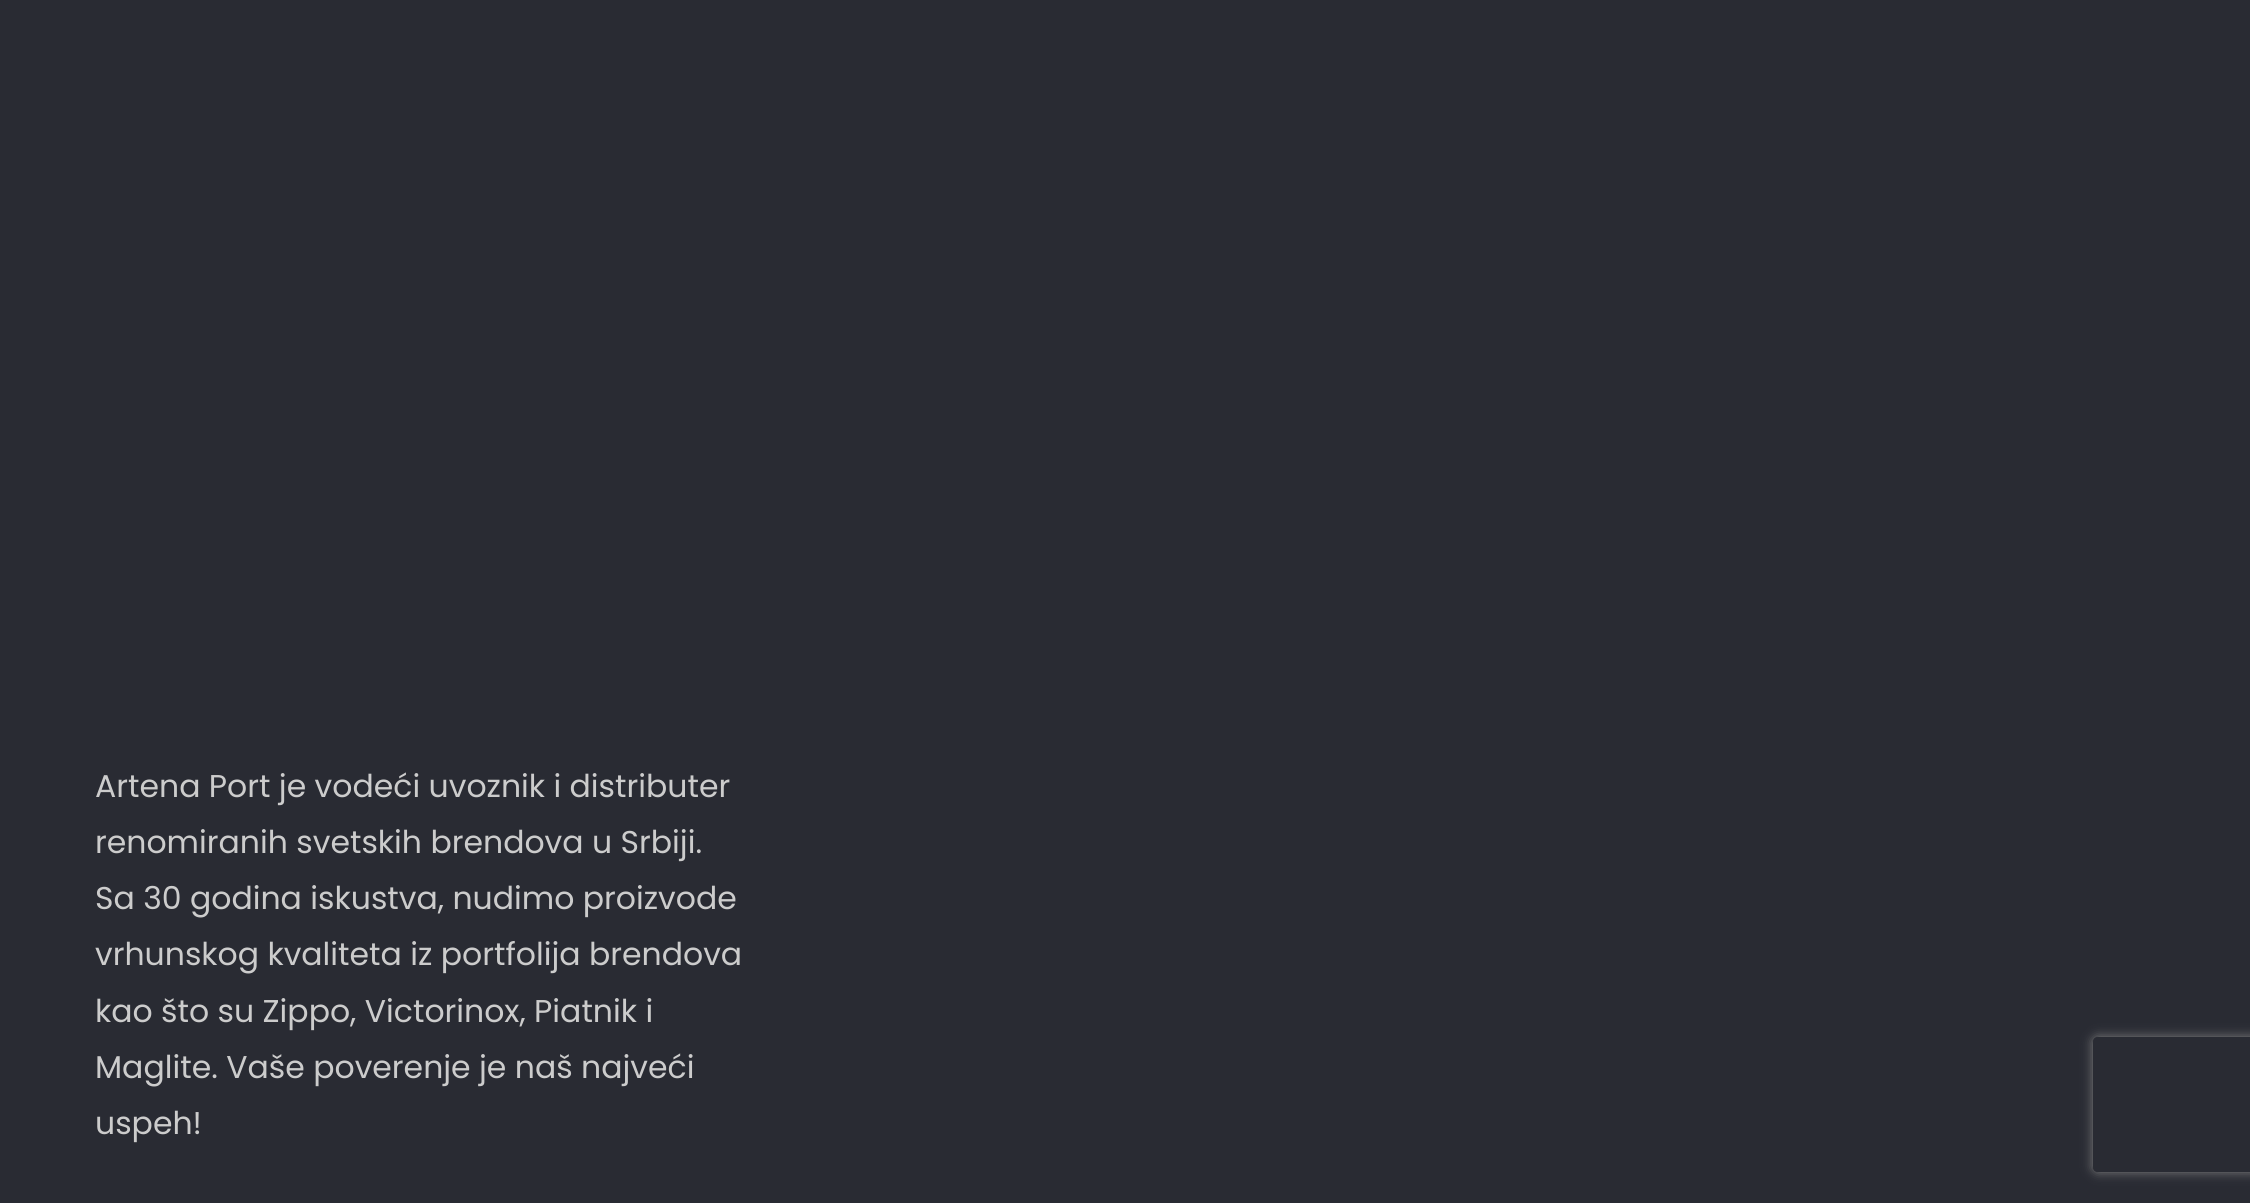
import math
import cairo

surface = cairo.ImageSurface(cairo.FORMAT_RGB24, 2250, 1203)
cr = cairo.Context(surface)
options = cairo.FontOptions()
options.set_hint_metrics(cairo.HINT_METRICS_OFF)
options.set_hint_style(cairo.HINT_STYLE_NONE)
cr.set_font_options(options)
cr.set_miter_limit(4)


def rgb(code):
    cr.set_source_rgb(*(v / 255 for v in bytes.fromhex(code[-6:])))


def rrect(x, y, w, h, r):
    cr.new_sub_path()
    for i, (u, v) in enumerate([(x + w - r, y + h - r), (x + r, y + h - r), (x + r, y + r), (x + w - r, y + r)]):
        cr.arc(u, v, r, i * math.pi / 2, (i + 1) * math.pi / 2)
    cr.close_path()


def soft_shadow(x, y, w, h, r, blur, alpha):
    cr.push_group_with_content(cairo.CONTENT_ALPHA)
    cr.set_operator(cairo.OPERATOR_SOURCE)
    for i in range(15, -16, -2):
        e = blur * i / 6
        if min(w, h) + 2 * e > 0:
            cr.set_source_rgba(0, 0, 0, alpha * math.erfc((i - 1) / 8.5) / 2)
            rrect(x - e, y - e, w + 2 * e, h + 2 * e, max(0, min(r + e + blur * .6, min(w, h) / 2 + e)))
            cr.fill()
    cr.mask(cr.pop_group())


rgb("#292b33")
cr.paint()
cr.save()
cr.set_fill_rule(cairo.FILL_RULE_EVEN_ODD)
cr.new_path()
cr.move_to(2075, 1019)
cr.line_to(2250, 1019)
cr.line_to(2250, 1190)
cr.line_to(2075, 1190)
cr.close_path()
cr.move_to(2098, 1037)
cr.line_to(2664, 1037)
cr.curve_to(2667, 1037, 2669, 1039, 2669, 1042)
cr.line_to(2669, 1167)
cr.curve_to(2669, 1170, 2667, 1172, 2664, 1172)
cr.line_to(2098, 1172)
cr.curve_to(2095, 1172, 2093, 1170, 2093, 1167)
cr.line_to(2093, 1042)
cr.curve_to(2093, 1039, 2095, 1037, 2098, 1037)
cr.close_path()
cr.clip()
rgb("#808080")
soft_shadow(2093, 1037, 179, 135, 5, 5.5, 1)
cr.restore()
cr.select_font_face("Poppins")
cr.set_font_size(31.5)
rgb("#cccccc")
for x, y, s in [
    (95, 797, "Artena Port je vodeći uvoznik i distributer"),
    (95, 853, "renomiranih svetskih brendova u Srbiji."),
    (95, 909, "Sa 30 godina iskustva, nudimo proizvode"),
    (95, 965, "vrhunskog kvaliteta iz portfolija brendova"),
    (95, 1022, "kao što su Zippo, Victorinox, Piatnik i"),
    (95, 1078, "Maglite. Vaše poverenje je naš najveći"),
    (95, 1134, "uspeh!"),
]:
    cr.move_to(x, y)
    cr.show_text(s)
surface.write_to_png("page.png")
